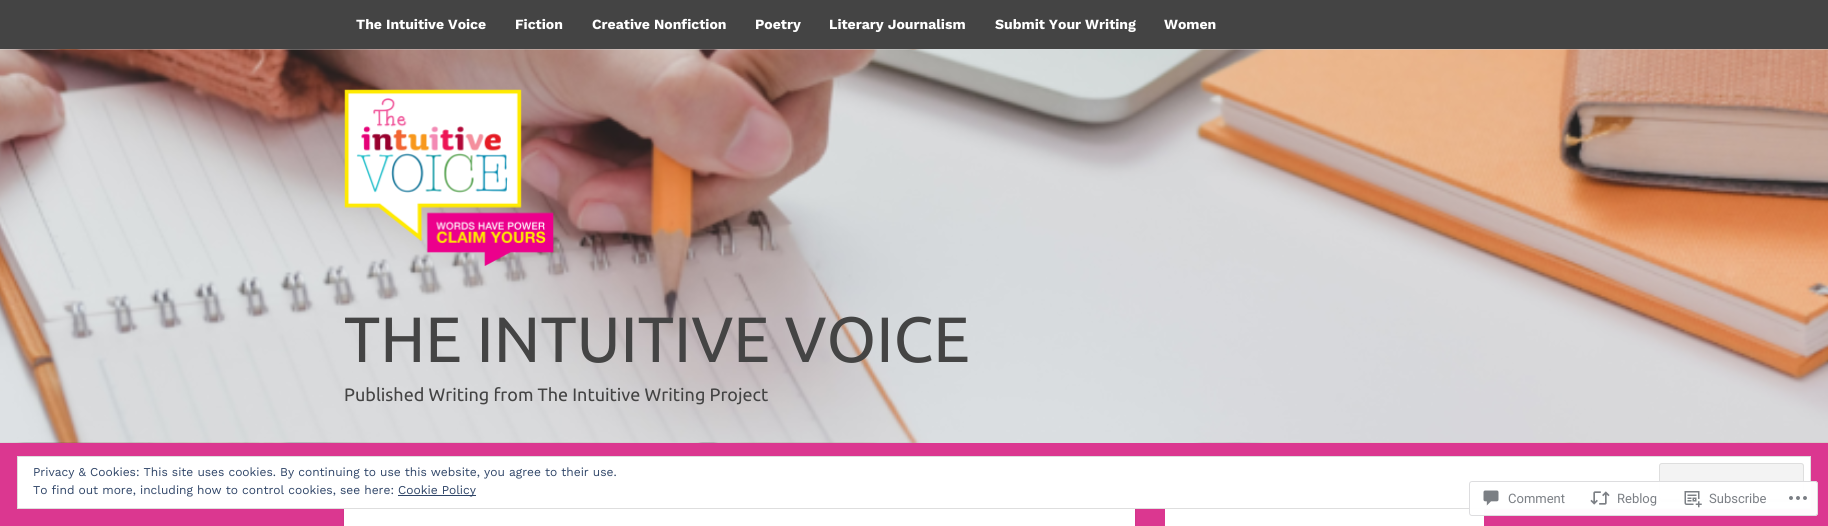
import math
import cairo

surface = cairo.ImageSurface(cairo.FORMAT_RGB24, 1828, 526)
cr = cairo.Context(surface)
options = cairo.FontOptions()
options.set_hint_metrics(cairo.HINT_METRICS_OFF)
options.set_hint_style(cairo.HINT_STYLE_NONE)
cr.set_font_options(options)
cr.set_miter_limit(4)


def rgb(code):
    cr.set_source_rgb(*(v / 255 for v in bytes.fromhex(code[-6:])))


def rrect(x, y, w, h, r):
    cr.new_sub_path()
    for i, (u, v) in enumerate([(x + w - r, y + h - r), (x + r, y + h - r), (x + r, y + r), (x + w - r, y + r)]):
        cr.arc(u, v, r, i * math.pi / 2, (i + 1) * math.pi / 2)
    cr.close_path()


def soft_shadow(x, y, w, h, r, blur, alpha):
    cr.push_group_with_content(cairo.CONTENT_ALPHA)
    cr.set_operator(cairo.OPERATOR_SOURCE)
    for i in range(15, -16, -2):
        e = blur * i / 6
        if min(w, h) + 2 * e > 0:
            cr.set_source_rgba(0, 0, 0, alpha * math.erfc((i - 1) / 8.5) / 2)
            rrect(x - e, y - e, w + 2 * e, h + 2 * e, max(0, min(r + e + blur * .6, min(w, h) / 2 + e)))
            cr.fill()
    cr.mask(cr.pop_group())


def image(path, x, y, w, h):
    cr.save()
    cr.set_source_surface(cairo.ImageSurface.create_from_png(path), x, y)
    cr.rectangle(x, y, w, h)
    cr.fill()
    cr.restore()


rgb("#db3790")
cr.paint()
rgb("#444444")
cr.rectangle(0, 0, 1828, 49)
cr.fill()
image("img/1.png", 0, 49, 1828, 394)
image("img/2.png", 344, 89, 210, 177)
rgb("#000000")
soft_shadow(344, 474, 791, 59, 4, 1, 0.1)
rgb("#ffffff")
cr.rectangle(344, 509, 791, 17)
cr.fill()
cr.rectangle(1165, 509, 319, 17)
cr.fill()
cr.rectangle(17.5, 456.5, 1793, 52)
cr.fill_preserve()
rgb("#dedede")
cr.set_line_width(1)
cr.stroke()
rgb("#f3f3f3")
rrect(1659, 463, 145, 39, 3)
cr.fill()
rgb("#c2c2c2")
cr.new_path()
cr.move_to(1660, 497)
cr.curve_to(1660, 498, 1660, 500, 1661, 501)
cr.line_to(1801, 501)
cr.curve_to(1803, 501, 1803, 499, 1803, 497)
cr.curve_to(1803, 498, 1802, 499, 1801, 499)
cr.line_to(1662, 499)
cr.curve_to(1661, 499, 1660, 498, 1660, 497)
cr.close_path()
cr.fill()
rrect(1659.5, 463.5, 144, 38, 2.5)
rgb("#dedede")
cr.stroke()
rgb("#2e4467")
cr.rectangle(398, 495, 78, 1)
cr.fill()
cr.set_source_rgba(1, 1, 1, 0.98)
rrect(1469, 481, 349, 35, 3)
cr.fill()
rrect(1469.5, 481.5, 348, 34, 2.5)
cr.set_source_rgba(0.863, 0.863, 0.871, 0.98)
cr.stroke()
image("img/3.png", 1483, 490, 16, 16)
image("img/4.png", 1590, 491, 20, 14)
image("img/5.png", 1684, 491, 18, 17)
image("img/6.png", 1789, 496, 18, 4)
cr.select_font_face("Work Sans", cairo.FONT_SLANT_NORMAL, cairo.FONT_WEIGHT_BOLD)
cr.set_font_size(14)
rgb("#ffffff")
for x, y, s in [
    (356, 29, "The Intuitive Voice"),
    (515, 29, "Fiction"),
    (592, 29, "Creative Nonfiction"),
    (755, 29, "Poetry"),
    (829, 29, "Literary Journalism"),
    (995, 29, "Submit Your Writing"),
    (1164, 29, "Women"),
]:
    cr.move_to(x, y)
    cr.show_text(s)
cr.select_font_face("Ubuntu")
cr.set_font_size(64)
rgb("#444444")
cr.move_to(344, 362)
cr.show_text("THE INTUITIVE VOICE")
cr.set_font_size(18)
cr.move_to(344, 401)
cr.show_text("Published Writing from The Intuitive Writing Project")
cr.select_font_face("Work Sans")
cr.set_font_size(12)
rgb("#2e4467")
for x, y, s in [
    (33, 476, "Privacy & Cookies: This site uses cookies. By continuing to use this website, you agree to their use."),
    (33, 494, "To find out more, including how to control cookies, see here:"),
    (398, 494, "Cookie Policy"),
]:
    cr.move_to(x, y)
    cr.show_text(s)
cr.select_font_face("Roboto")
cr.set_font_size(13)
rgb("#7b7f85")
for x, y, s in [
    (1508, 503, "Comment"),
    (1617, 503, "Reblog"),
    (1709, 503, "Subscribe"),
]:
    cr.move_to(x, y)
    cr.show_text(s)
surface.write_to_png("page.png")
